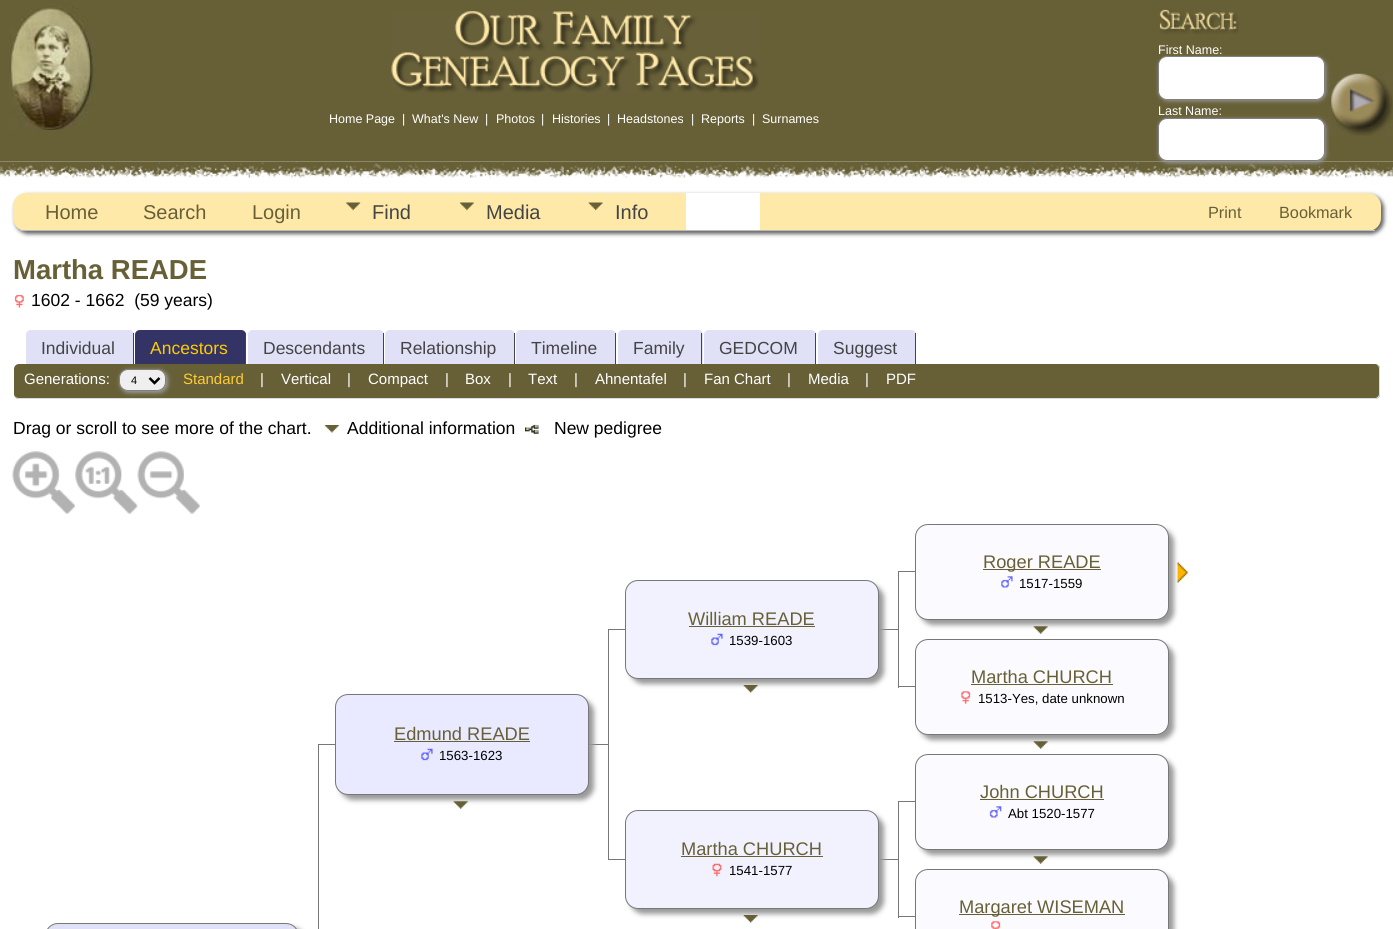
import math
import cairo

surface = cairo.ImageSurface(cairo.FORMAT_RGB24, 1393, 929)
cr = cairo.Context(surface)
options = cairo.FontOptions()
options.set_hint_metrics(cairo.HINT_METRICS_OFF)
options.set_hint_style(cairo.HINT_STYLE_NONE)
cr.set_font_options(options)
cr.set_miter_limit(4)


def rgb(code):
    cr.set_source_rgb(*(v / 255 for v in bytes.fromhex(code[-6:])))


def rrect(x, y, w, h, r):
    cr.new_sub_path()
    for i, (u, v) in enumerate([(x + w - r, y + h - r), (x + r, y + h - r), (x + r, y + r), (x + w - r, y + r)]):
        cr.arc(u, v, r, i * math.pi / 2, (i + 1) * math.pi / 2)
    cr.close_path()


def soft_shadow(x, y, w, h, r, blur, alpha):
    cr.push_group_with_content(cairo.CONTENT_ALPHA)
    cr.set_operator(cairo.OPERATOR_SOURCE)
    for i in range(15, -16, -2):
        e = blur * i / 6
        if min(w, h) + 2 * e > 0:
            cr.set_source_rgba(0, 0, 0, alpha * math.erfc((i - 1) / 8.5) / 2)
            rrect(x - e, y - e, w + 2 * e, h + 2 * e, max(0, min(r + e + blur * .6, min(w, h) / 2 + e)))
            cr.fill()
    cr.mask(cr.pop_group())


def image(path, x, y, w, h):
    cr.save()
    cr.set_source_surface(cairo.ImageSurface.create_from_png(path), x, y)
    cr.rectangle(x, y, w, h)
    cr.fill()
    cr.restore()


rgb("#676037")
cr.paint()
image("img/1.png", 9, 6, 86, 124)
image("img/2.png", 1159, 9, 80, 25)
image("img/3.png", 1325, 71, 68, 65)
rgb("#999999")
soft_shadow(1159, 58, 167, 43, 9, 2, 1)
rgb("#ffffff")
rrect(1158.5, 56.5, 166, 43, 8.5)
cr.fill_preserve()
rgb("#808080")
cr.set_line_width(1)
cr.stroke()
rgb("#ffffff")
cr.rectangle(0, 161, 1393, 768)
cr.fill()
image("img/5.png", 0, 161, 1393, 18)
rgb("#999999")
soft_shadow(1159, 119, 167, 44, 9, 2, 1)
rgb("#ffffff")
rrect(1158.5, 118.5, 166, 42, 8.5)
cr.fill_preserve()
rgb("#808080")
cr.stroke()
image("img/4.png", 391, 11, 368, 82)
rgb("#666666")
soft_shadow(15, 195, 1369, 39, 13, 2, 1)
rgb("#ffe9a9")
rrect(13, 193, 1368, 38, 13)
cr.fill()
rgb("#bbbbbb")
cr.rectangle(19, 230, 1356, 1)
cr.fill()
rgb("#ffffff")
cr.rectangle(686, 193, 74, 37)
cr.fill()
image("img/6.png", 346, 202, 15, 9)
image("img/7.png", 459, 202, 15, 9)
image("img/8.png", 588, 202, 15, 9)
image("img/9.png", 14, 294, 10, 14)
rgb("#e0e0f7")
cr.new_path()
cr.move_to(31, 330)
cr.line_to(129, 330)
cr.curve_to(132, 330, 134, 332, 134, 335)
cr.line_to(134, 364)
cr.line_to(26, 364)
cr.line_to(26, 335)
cr.curve_to(26, 332, 28, 330, 31, 330)
cr.close_path()
cr.fill()
rgb("#444444")
cr.rectangle(133, 333, 1, 31)
cr.fill()
rgb("#676037")
rrect(14, 364, 1366, 35, 5)
cr.fill()
rgb("#dddddd")
cr.set_fill_rule(cairo.FILL_RULE_EVEN_ODD)
cr.new_path()
cr.move_to(19, 364)
cr.line_to(1375, 364)
cr.curve_to(1378, 364, 1380, 366, 1380, 369)
cr.line_to(1380, 394)
cr.curve_to(1380, 397, 1378, 399, 1375, 399)
cr.line_to(19, 399)
cr.curve_to(16, 399, 14, 397, 14, 394)
cr.line_to(14, 369)
cr.curve_to(14, 366, 16, 364, 19, 364)
cr.close_path()
cr.move_to(19, 364)
cr.line_to(1375, 364)
cr.curve_to(1377, 364, 1379, 366, 1379, 369)
cr.line_to(1379, 394)
cr.curve_to(1379, 396, 1377, 398, 1375, 398)
cr.line_to(19, 398)
cr.curve_to(16, 398, 14, 396, 14, 394)
cr.line_to(14, 369)
cr.curve_to(14, 366, 16, 364, 19, 364)
cr.close_path()
cr.fill()
rgb("#999999")
soft_shadow(120, 370, 48, 23, 9, 2, 1)
rgb("#333366")
cr.new_path()
cr.move_to(140, 330)
cr.line_to(241, 330)
cr.curve_to(244, 330, 246, 332, 246, 335)
cr.line_to(246, 364)
cr.line_to(135, 364)
cr.line_to(135, 335)
cr.curve_to(135, 332, 137, 330, 140, 330)
cr.close_path()
cr.fill()
rgb("#444444")
cr.rectangle(245, 333, 1, 31)
cr.fill()
rgb("#e0e0f7")
cr.new_path()
cr.move_to(253, 330)
cr.line_to(379, 330)
cr.curve_to(382, 330, 384, 332, 384, 335)
cr.line_to(384, 364)
cr.line_to(248, 364)
cr.line_to(248, 335)
cr.curve_to(248, 332, 250, 330, 253, 330)
cr.close_path()
cr.fill()
rgb("#444444")
cr.rectangle(383, 333, 1, 31)
cr.fill()
rgb("#e0e0f7")
cr.new_path()
cr.move_to(390, 330)
cr.line_to(510, 330)
cr.curve_to(513, 330, 515, 332, 515, 335)
cr.line_to(515, 364)
cr.line_to(385, 364)
cr.line_to(385, 335)
cr.curve_to(385, 332, 387, 330, 390, 330)
cr.close_path()
cr.fill()
rgb("#444444")
cr.rectangle(514, 333, 1, 31)
cr.fill()
rgb("#e0e0f7")
cr.new_path()
cr.move_to(521, 330)
cr.line_to(611, 330)
cr.curve_to(614, 330, 616, 332, 616, 335)
cr.line_to(616, 364)
cr.line_to(516, 364)
cr.line_to(516, 335)
cr.curve_to(516, 332, 518, 330, 521, 330)
cr.close_path()
cr.fill()
rgb("#444444")
cr.rectangle(615, 333, 1, 31)
cr.fill()
rgb("#e0e0f7")
cr.new_path()
cr.move_to(623, 330)
cr.line_to(698, 330)
cr.curve_to(701, 330, 703, 332, 703, 335)
cr.line_to(703, 364)
cr.line_to(618, 364)
cr.line_to(618, 335)
cr.curve_to(618, 332, 620, 330, 623, 330)
cr.close_path()
cr.fill()
rgb("#444444")
cr.rectangle(701, 333, 1, 31)
cr.fill()
rgb("#e0e0f7")
cr.new_path()
cr.move_to(709, 330)
cr.line_to(811, 330)
cr.curve_to(814, 330, 816, 332, 816, 335)
cr.line_to(816, 364)
cr.line_to(704, 364)
cr.line_to(704, 335)
cr.curve_to(704, 332, 706, 330, 709, 330)
cr.close_path()
cr.fill()
rgb("#444444")
cr.rectangle(815, 333, 1, 31)
cr.fill()
rgb("#e0e0f7")
cr.new_path()
cr.move_to(823, 330)
cr.line_to(911, 330)
cr.curve_to(914, 330, 916, 332, 916, 335)
cr.line_to(916, 364)
cr.line_to(818, 364)
cr.line_to(818, 335)
cr.curve_to(818, 332, 820, 330, 823, 330)
cr.close_path()
cr.fill()
rgb("#444444")
cr.rectangle(915, 333, 1, 31)
cr.fill()
rgb("#efefef")
rrect(119.5, 369.5, 46, 21, 8.5)
cr.fill_preserve()
rgb("#808080")
cr.stroke()
cr.new_path()
cr.move_to(149.5, 378)
cr.line_to(154.5, 383)
cr.line_to(159.5, 378)
rgb("#000000")
cr.set_line_width(2.5)
cr.stroke()
image("img/10.png", 324, 425, 15, 8)
image("img/11.png", 525, 424, 14, 10)
image("img/12.png", 12, 451, 63, 63)
image("img/13.png", 75, 451, 63, 63)
image("img/14.png", 137, 451, 63, 63)
rgb("#777777")
cr.rectangle(898, 571, 21, 1)
cr.fill()
rgb("#999999")
soft_shadow(920, 529, 254, 96, 13, 2.5, 1)
rgb("#fbfbff")
rrect(915.5, 524.5, 253, 95, 12.5)
cr.fill_preserve()
rgb("#777777")
cr.set_line_width(1)
cr.stroke()
rgb("#676037")
cr.rectangle(983, 569, 118, 1)
cr.fill()
image("img/15.png", 1001, 576, 12, 12)
image("img/16.png", 1033, 626, 15, 8)
image("img/17.png", 1177, 562, 11, 21)
rgb("#777777")
cr.rectangle(608, 629, 21, 1)
cr.fill()
cr.rectangle(878, 629, 20, 1)
cr.fill()
rgb("#999999")
soft_shadow(630, 585, 254, 99, 13, 2.5, 1)
rgb("#f2f2ff")
rrect(625.5, 580.5, 253, 98, 12.5)
cr.fill_preserve()
rgb("#777777")
cr.stroke()
rgb("#676037")
cr.rectangle(689, 626, 126, 1)
cr.fill()
image("img/18.png", 711, 633, 12, 13)
image("img/19.png", 743, 685, 15, 8)
for x, y, w, h, color in [
    (898, 571, 1, 59, "#777777"),
    (608, 629, 1, 116, "#777777"),
    (898, 686, 21, 1, "#777777"),
    (898, 630, 1, 58, "#777777"),
]:
    rgb(color)
    cr.rectangle(x, y, w, h)
    cr.fill()
rgb("#999999")
soft_shadow(920, 644, 254, 96, 13, 2.5, 1)
rgb("#fbfbff")
rrect(915.5, 639.5, 253, 95, 12.5)
cr.fill_preserve()
rgb("#777777")
cr.stroke()
rgb("#676037")
cr.rectangle(971, 684, 142, 1)
cr.fill()
image("img/20.png", 961, 691, 10, 13)
image("img/16.png", 1033, 741, 15, 8)
rgb("#777777")
cr.rectangle(318, 744, 21, 1)
cr.fill()
cr.rectangle(588, 744, 20, 1)
cr.fill()
rgb("#999999")
soft_shadow(340, 699, 254, 101, 13, 2.5, 1)
rgb("#e9e9ff")
rrect(335.5, 694.5, 253, 100, 12.5)
cr.fill_preserve()
rgb("#777777")
cr.stroke()
rgb("#676037")
cr.rectangle(394, 741, 136, 1)
cr.fill()
image("img/21.png", 421, 748, 12, 13)
image("img/16.png", 453, 801, 15, 8)
for x, y, w, h, color in [
    (318, 744, 1, 185, "#777777"),
    (608, 859, 21, 1, "#777777"),
    (608, 745, 1, 115, "#777777"),
    (898, 801, 21, 1, "#777777"),
]:
    rgb(color)
    cr.rectangle(x, y, w, h)
    cr.fill()
rgb("#999999")
soft_shadow(920, 759, 254, 96, 13, 2.5, 1)
rgb("#fbfbff")
rrect(915.5, 754.5, 253, 95, 12.5)
cr.fill_preserve()
rgb("#777777")
cr.stroke()
rgb("#676037")
cr.rectangle(980, 799, 124, 1)
cr.fill()
image("img/22.png", 989, 806, 13, 12)
image("img/16.png", 1033, 856, 15, 8)
rgb("#777777")
cr.rectangle(878, 859, 20, 1)
cr.fill()
rgb("#999999")
soft_shadow(630, 815, 254, 99, 13, 2.5, 1)
rgb("#f2f2ff")
rrect(625.5, 810.5, 253, 98, 12.5)
cr.fill_preserve()
rgb("#777777")
cr.stroke()
rgb("#676037")
cr.rectangle(681, 856, 142, 1)
cr.fill()
image("img/23.png", 712, 863, 10, 14)
image("img/19.png", 743, 915, 15, 8)
for x, y, w, h, color in [
    (898, 801, 1, 59, "#777777"),
    (898, 916, 21, 1, "#777777"),
    (898, 860, 1, 58, "#777777"),
]:
    rgb(color)
    cr.rectangle(x, y, w, h)
    cr.fill()
rgb("#999999")
soft_shadow(920, 874, 254, 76, 13, 2.5, 1)
rgb("#fbfbff")
rrect(915.5, 869.5, 253, 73, 12.5)
cr.fill_preserve()
rgb("#777777")
cr.stroke()
rgb("#676037")
cr.rectangle(959, 914, 166, 1)
cr.fill()
image("img/24.png", 991, 921, 10, 8)
rgb("#999999")
soft_shadow(50, 928, 254, 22, 13, 2.5, 1)
rgb("#e0e0f7")
rrect(45.5, 923.5, 253, 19, 12.5)
cr.fill_preserve()
rgb("#777777")
cr.stroke()
cr.select_font_face("Liberation Sans")
cr.set_font_size(12.5)
rgb("#ffffff")
for x, y, s in [
    (1158, 54, "First Name:"),
    (1158, 115, "Last Name:"),
    (329, 123, "Home Page"),
    (402, 123, "|"),
    (412, 123, "What's New"),
    (485, 123, "|"),
    (496, 123, "Photos"),
    (541, 123, "|"),
    (552, 123, "Histories"),
    (607, 123, "|"),
    (617, 123, "Headstones"),
    (691, 123, "|"),
    (701, 123, "Reports"),
    (752, 123, "|"),
    (762, 123, "Surnames"),
]:
    cr.move_to(x, y)
    cr.show_text(s)
cr.set_font_size(20)
rgb("#676037")
for x, y, s in [
    (45, 219, "Home"),
    (143, 219, "Search"),
    (252, 219, "Login"),
]:
    cr.move_to(x, y)
    cr.show_text(s)
rgb("#444444")
for x, y, s in [
    (372, 219, "Find"),
    (486, 219, "Media"),
    (615, 219, "Info"),
]:
    cr.move_to(x, y)
    cr.show_text(s)
cr.set_font_size(16.25)
rgb("#676037")
cr.move_to(1208, 218)
cr.show_text("Print")
cr.move_to(1279, 218)
cr.show_text("Bookmark")
cr.select_font_face("Liberation Sans", cairo.FONT_SLANT_NORMAL, cairo.FONT_WEIGHT_BOLD)
cr.set_font_size(27.5)
cr.move_to(13, 279)
cr.show_text("Martha READE")
cr.select_font_face("Liberation Sans")
cr.set_font_size(17.5)
rgb("#000000")
cr.move_to(31, 306)
cr.show_text("1602 - 1662  (59 years)")
rgb("#444444")
cr.move_to(41, 354)
cr.show_text("Individual")
rgb("#ffcc00")
cr.move_to(150, 354)
cr.show_text("Ancestors")
rgb("#444444")
for x, y, s in [
    (263, 354, "Descendants"),
    (400, 354, "Relationship"),
    (531, 354, "Timeline"),
    (633, 354, "Family"),
    (719, 354, "GEDCOM"),
    (833, 354, "Suggest"),
]:
    cr.move_to(x, y)
    cr.show_text(s)
cr.set_font_size(15)
rgb("#ffffff")
cr.move_to(24, 384)
cr.show_text("Generations:")
cr.set_font_size(11)
rgb("#000000")
cr.move_to(131, 384)
cr.show_text("4")
cr.set_font_size(15)
rgb("#ffcc33")
cr.move_to(183, 384)
cr.show_text("Standard")
rgb("#ffffff")
for x, y, s in [
    (260, 384, "|"),
    (281, 384, "Vertical"),
    (347, 384, "|"),
    (368, 384, "Compact"),
    (445, 384, "|"),
    (465, 384, "Box"),
    (508, 384, "|"),
    (528, 384, "Text"),
    (574, 384, "|"),
    (595, 384, "Ahnentafel"),
    (683, 384, "|"),
    (704, 384, "Fan Chart"),
    (787, 384, "|"),
    (808, 384, "Media"),
    (865, 384, "|"),
    (886, 384, "PDF"),
]:
    cr.move_to(x, y)
    cr.show_text(s)
cr.set_font_size(17.5)
rgb("#000000")
for x, y, s in [
    (13, 434, "Drag or scroll to see more of the chart."),
    (347, 434, "Additional information"),
    (554, 434, "New pedigree"),
]:
    cr.move_to(x, y)
    cr.show_text(s)
cr.set_font_size(18.25)
rgb("#676037")
cr.move_to(983, 568)
cr.show_text("Roger READE")
cr.set_font_size(13.25)
rgb("#000000")
cr.move_to(1019, 588)
cr.show_text("1517-1559")
cr.set_font_size(18.25)
rgb("#676037")
cr.move_to(688, 625)
cr.show_text("William READE")
cr.set_font_size(13.25)
rgb("#000000")
cr.move_to(729, 645)
cr.show_text("1539-1603")
cr.set_font_size(18.25)
rgb("#676037")
cr.move_to(971, 683)
cr.show_text("Martha CHURCH")
cr.set_font_size(13.25)
rgb("#000000")
cr.move_to(978, 703)
cr.show_text("1513-Yes, date unknown")
cr.set_font_size(18.25)
rgb("#676037")
cr.move_to(394, 740)
cr.show_text("Edmund READE")
cr.set_font_size(13.25)
rgb("#000000")
cr.move_to(439, 760)
cr.show_text("1563-1623")
cr.set_font_size(18.25)
rgb("#676037")
cr.move_to(980, 798)
cr.show_text("John CHURCH")
cr.set_font_size(13.25)
rgb("#000000")
cr.move_to(1008, 818)
cr.show_text("Abt 1520-1577")
cr.set_font_size(18.25)
rgb("#676037")
cr.move_to(681, 855)
cr.show_text("Martha CHURCH")
cr.set_font_size(13.25)
rgb("#000000")
cr.move_to(729, 875)
cr.show_text("1541-1577")
cr.set_font_size(18.25)
rgb("#676037")
cr.move_to(959, 913)
cr.show_text("Margaret WISEMAN")
surface.write_to_png("page.png")
